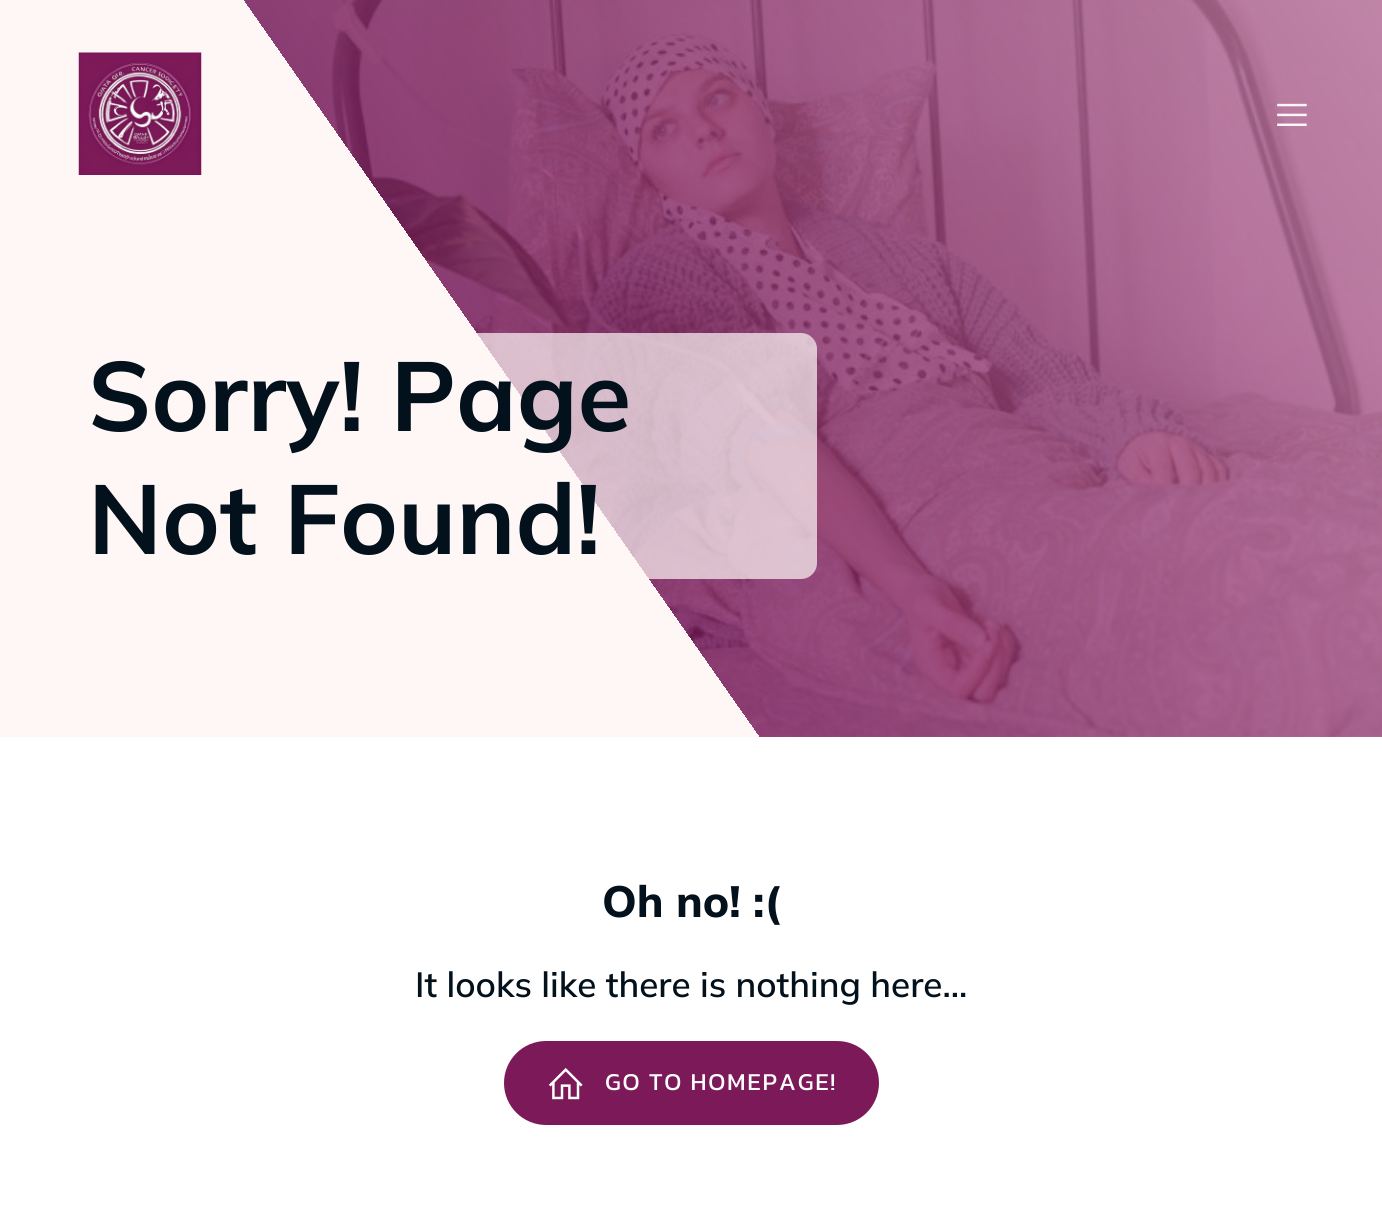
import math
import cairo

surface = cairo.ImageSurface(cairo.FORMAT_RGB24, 1382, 1227)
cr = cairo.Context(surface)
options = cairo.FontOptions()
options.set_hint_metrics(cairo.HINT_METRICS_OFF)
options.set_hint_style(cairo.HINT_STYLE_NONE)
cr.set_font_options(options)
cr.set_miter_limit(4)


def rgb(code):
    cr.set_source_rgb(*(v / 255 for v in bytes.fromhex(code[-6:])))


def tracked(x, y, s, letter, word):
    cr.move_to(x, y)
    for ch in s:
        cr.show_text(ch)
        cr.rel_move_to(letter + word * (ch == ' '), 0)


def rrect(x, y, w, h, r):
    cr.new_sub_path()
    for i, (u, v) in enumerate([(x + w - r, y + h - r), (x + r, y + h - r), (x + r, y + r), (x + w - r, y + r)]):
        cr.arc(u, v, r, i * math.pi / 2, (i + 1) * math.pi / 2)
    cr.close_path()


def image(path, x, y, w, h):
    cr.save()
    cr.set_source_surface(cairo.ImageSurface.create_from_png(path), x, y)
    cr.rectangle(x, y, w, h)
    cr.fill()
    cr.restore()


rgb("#ffffff")
cr.paint()
image("img/3.png", 244, 0, 1138, 737)
gradient = cairo.LinearGradient(53, 815, 1330, -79)
gradient.add_color_stop_rgba(0.4, 0.996, 0.969, 0.961, 1)
gradient.add_color_stop_rgba(0.4, 0.486, 0.098, 0.345, 0.8)
gradient.add_color_stop_rgba(0.99, 0.753, 0.447, 0.6, 0.8)
cr.set_source(gradient)
cr.rectangle(0, 0, 1382, 737)
cr.fill()
image("img/1.png", 78, 52, 124, 123)
image("img/2.png", 1277, 103, 30, 23)
cr.set_source_rgba(0.996, 0.969, 0.961, 0.7)
rrect(61, 333, 756, 246, 16)
cr.fill()
rgb("#7c1958")
rrect(504, 1041, 375, 84, 42)
cr.fill()
image("img/4.png", 548, 1068, 35, 32)
cr.select_font_face("Mulish", cairo.FONT_SLANT_NORMAL, cairo.FONT_WEIGHT_BOLD)
cr.set_font_size(98)
rgb("#03111c")
cr.move_to(88, 431)
cr.show_text("Sorry! Page")
cr.move_to(88, 554)
cr.show_text("Not Found!")
cr.select_font_face("Mulish ExtraBold")
cr.set_font_size(43.75)
cr.move_to(602, 917)
cr.show_text("Oh no! :(")
cr.select_font_face("Mulish SemiBold")
cr.set_font_size(35)
cr.move_to(415, 997)
cr.show_text("It looks like there is nothing here...")
cr.select_font_face("Kanit")
cr.set_font_size(24.5)
rgb("#ffffff")
tracked(605, 1090, "GO TO HOMEPAGE!", 1.75, 0)
surface.write_to_png("page.png")
